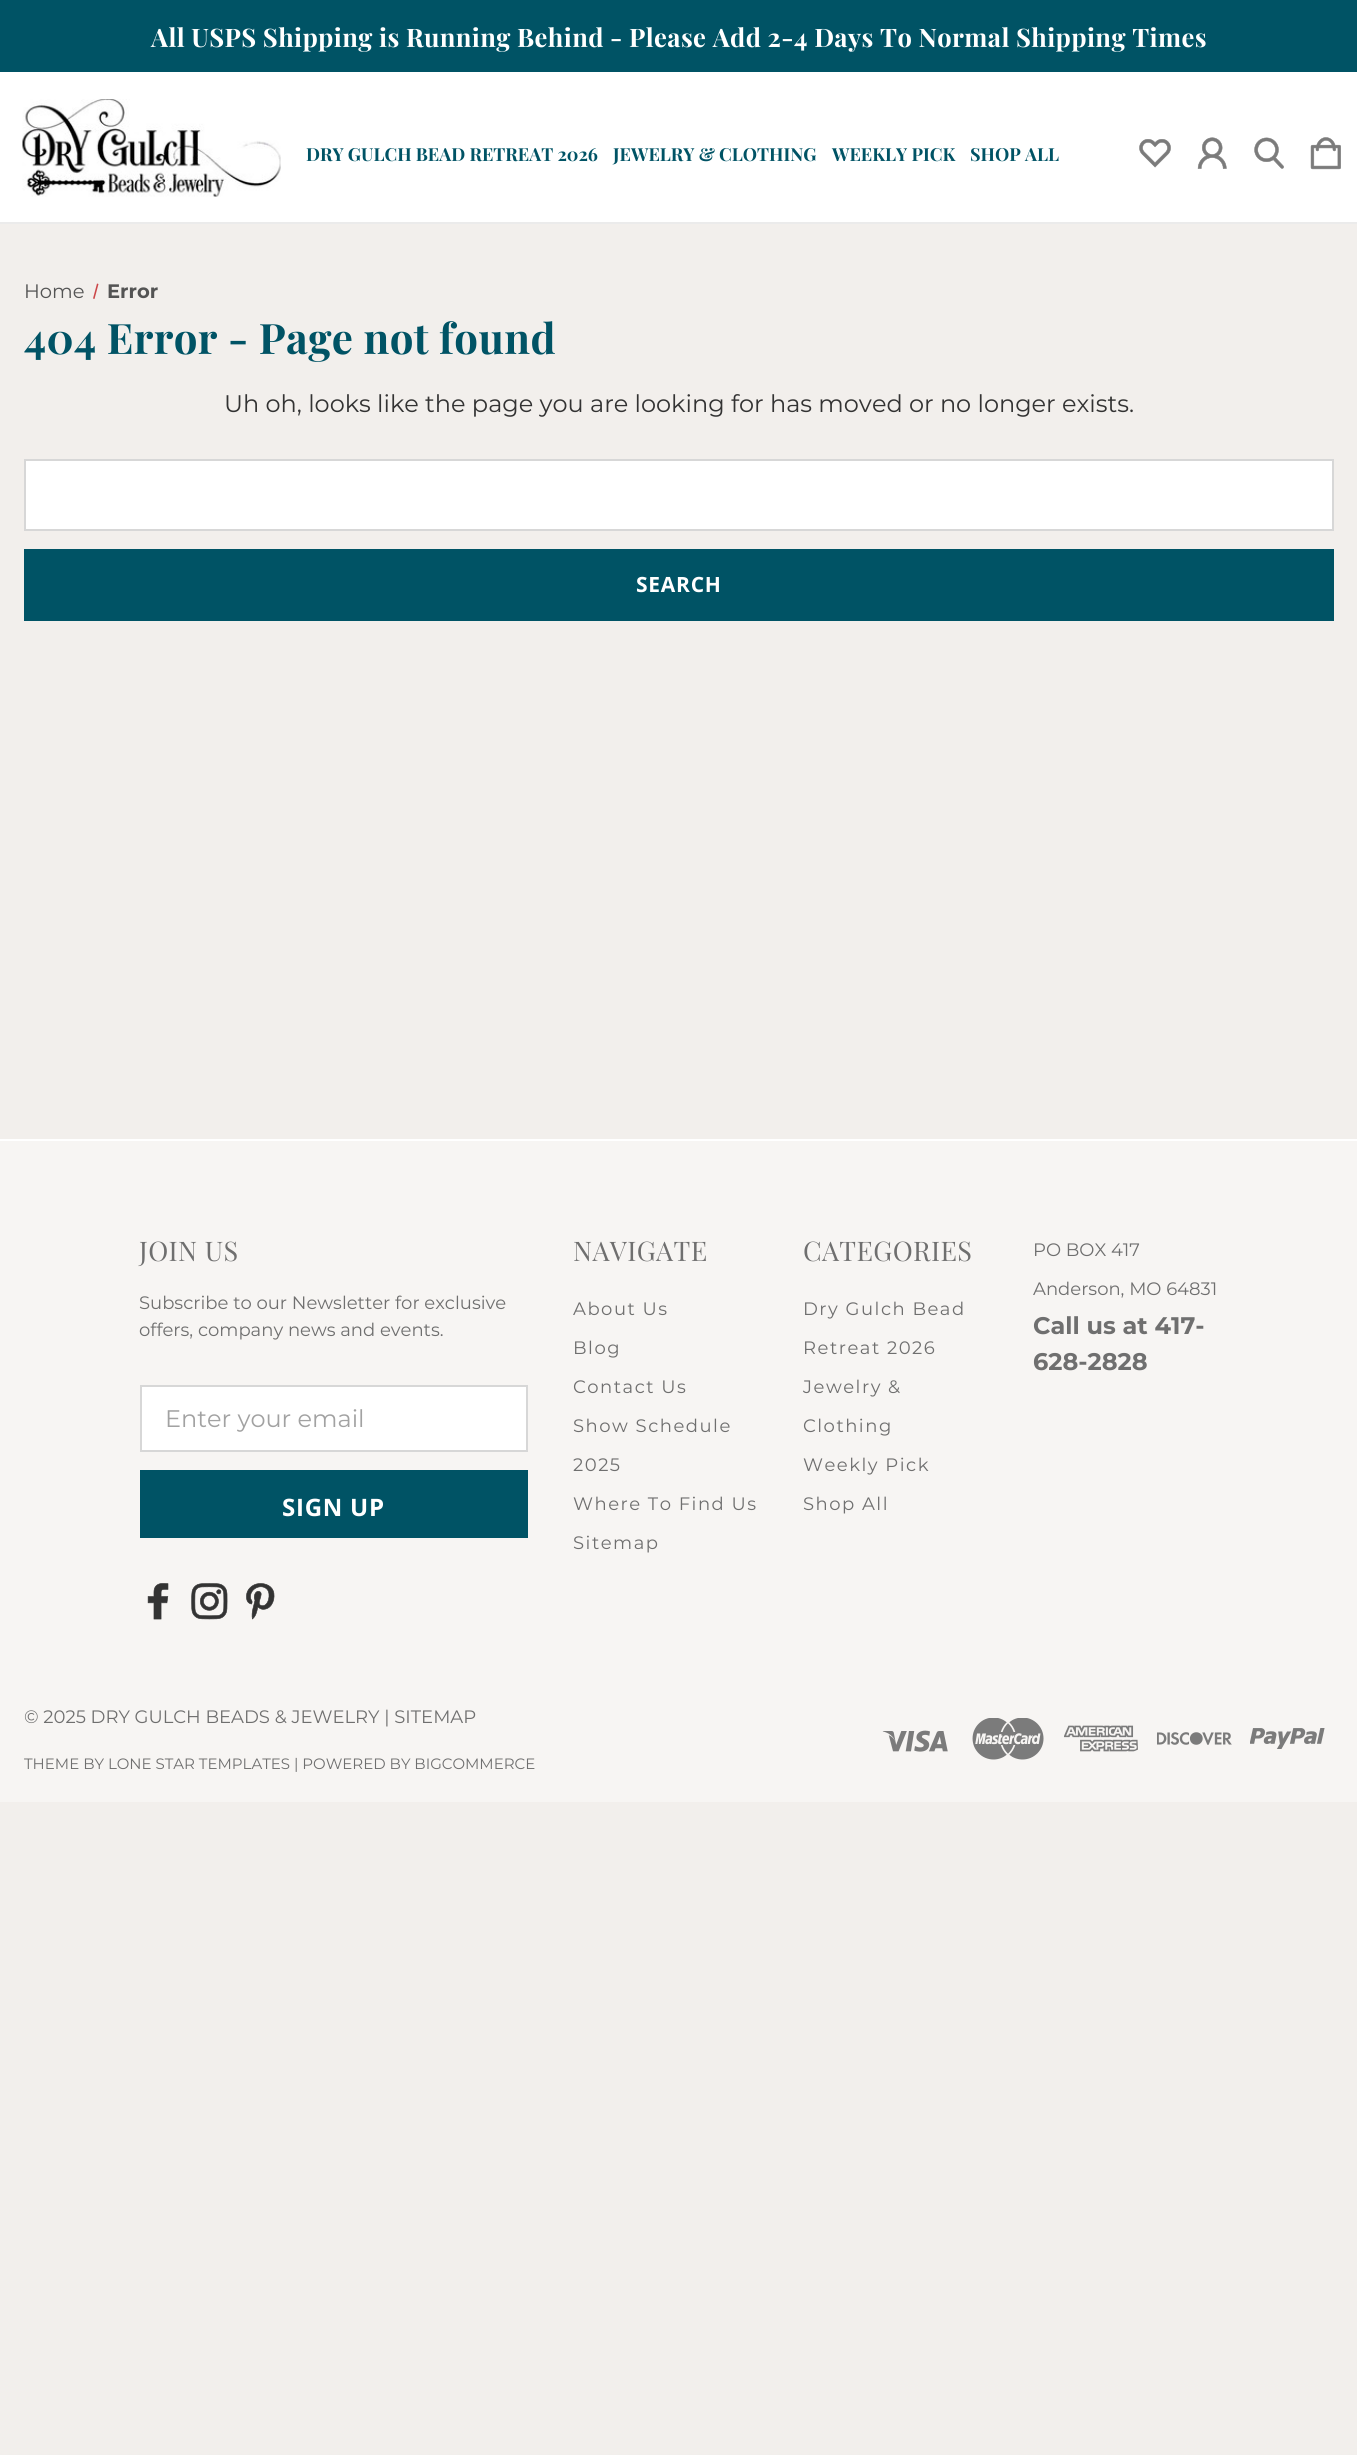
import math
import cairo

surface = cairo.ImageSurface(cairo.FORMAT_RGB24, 1357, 2455)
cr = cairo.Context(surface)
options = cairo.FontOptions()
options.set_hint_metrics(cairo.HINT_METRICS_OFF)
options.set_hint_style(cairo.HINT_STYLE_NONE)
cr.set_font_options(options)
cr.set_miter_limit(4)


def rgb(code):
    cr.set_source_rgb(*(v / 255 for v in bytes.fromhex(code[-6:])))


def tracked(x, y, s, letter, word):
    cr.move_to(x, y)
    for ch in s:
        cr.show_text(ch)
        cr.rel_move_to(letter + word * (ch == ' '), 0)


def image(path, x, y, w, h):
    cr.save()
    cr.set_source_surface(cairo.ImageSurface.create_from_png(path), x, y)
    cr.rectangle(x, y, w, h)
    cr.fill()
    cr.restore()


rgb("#f2efec")
cr.paint()
for x, y, w, h, color in [
    (0, 72, 1357, 150, "#ffffff"),
    (0, 222, 1357, 2, "#ebebeb"),
    (0, 0, 1357, 72, "#005365"),
]:
    rgb(color)
    cr.rectangle(x, y, w, h)
    cr.fill()
image("img/1.png", 22, 99, 259, 98)
image("img/2.png", 1139, 139, 32, 29)
image("img/3.png", 1197, 137, 30, 32)
image("img/4.png", 1254, 137, 30, 32)
image("img/5.png", 1310, 137, 31, 33)
rgb("#cc4749")
cr.new_path()
cr.move_to(97, 283.5)
cr.line_to(98.5, 284)
cr.line_to(94.5, 299)
cr.line_to(93, 298.5)
cr.close_path()
cr.fill()
rgb("#ffffff")
cr.rectangle(25, 460, 1308, 70)
cr.fill_preserve()
rgb("#d7d7d7")
cr.stroke()
for x, y, w, h, color in [
    (24, 549, 1310, 72, "#005365"),
    (0, 1141, 1357, 661, "#f7f5f3"),
    (0, 1139, 1357, 2, "#ffffff"),
]:
    rgb(color)
    cr.rectangle(x, y, w, h)
    cr.fill()
cr.rectangle(141, 1386, 386, 65)
cr.fill_preserve()
rgb("#d7d7d7")
cr.stroke()
rgb("#005365")
cr.rectangle(140, 1470, 388, 68)
cr.fill()
image("img/6.png", 147, 1583, 22, 37)
image("img/7.png", 191, 1583, 37, 37)
image("img/8.png", 246, 1583, 29, 37)
image("img/9.png", 882, 1730, 66, 22)
image("img/10.png", 972, 1718, 72, 42)
image("img/11.png", 1064, 1725, 74, 27)
image("img/12.png", 1157, 1732, 75, 13)
image("img/13.png", 1250, 1728, 75, 21)
cr.select_font_face("Playfair Display", cairo.FONT_SLANT_NORMAL, cairo.FONT_WEIGHT_BOLD)
cr.set_font_size(25.5)
rgb("#ffffff")
tracked(151, 47, "All USPS Shipping is Running Behind - Please Add 2-4 Days To Normal Shipping Times", 0.38, 0)
cr.set_font_size(18)
rgb("#005365")
for x, y, s in [
    (306, 161, "DRY GULCH BEAD RETREAT 2026"),
    (613, 161, "JEWELRY & CLOTHING"),
    (832, 161, "WEEKLY PICK"),
    (970, 161, "SHOP ALL"),
]:
    cr.move_to(x, y)
    cr.show_text(s)
cr.select_font_face("Montserrat")
cr.set_font_size(19.5)
rgb("#545454")
cr.move_to(24, 298)
cr.show_text("Home")
cr.select_font_face("Montserrat", cairo.FONT_SLANT_NORMAL, cairo.FONT_WEIGHT_BOLD)
cr.move_to(107, 298)
cr.show_text("Error")
cr.select_font_face("Playfair Display", cairo.FONT_SLANT_NORMAL, cairo.FONT_WEIGHT_BOLD)
cr.set_font_size(42)
rgb("#005365")
tracked(24, 354, "404 Error - Page not found", 0.38, 0)
cr.select_font_face("Montserrat")
cr.set_font_size(24)
rgb("#333333")
cr.move_to(224, 412)
cr.show_text("Uh oh, looks like the page you are looking for has moved or no longer exists.")
cr.select_font_face("Open Sans", cairo.FONT_SLANT_NORMAL, cairo.FONT_WEIGHT_BOLD)
cr.set_font_size(21)
rgb("#ffffff")
tracked(636, 592, "SEARCH", 0.75, 0)
cr.select_font_face("Playfair Display")
cr.set_font_size(27)
rgb("#6f6f6f")
tracked(139, 1261, "JOIN US", 0.38, 0)
cr.select_font_face("Montserrat")
cr.set_font_size(18)
cr.move_to(139, 1309)
cr.show_text("Subscribe to our Newsletter for exclusive")
cr.move_to(139, 1336)
cr.show_text("offers, company news and events.")
cr.set_font_size(24)
rgb("#a2a2a2")
cr.move_to(165, 1427)
cr.show_text("Enter your email")
cr.select_font_face("Open Sans", cairo.FONT_SLANT_NORMAL, cairo.FONT_WEIGHT_BOLD)
rgb("#ffffff")
tracked(282, 1516, "SIGN UP", 0.75, 0)
cr.select_font_face("Playfair Display")
cr.set_font_size(27)
rgb("#6f6f6f")
tracked(573, 1261, "NAVIGATE", 0.38, 0)
cr.select_font_face("Montserrat")
cr.set_font_size(18)
for x, y, s in [
    (573, 1315, "About Us"),
    (573, 1354, "Blog"),
    (573, 1393, "Contact Us"),
    (573, 1432, "Show Schedule"),
    (573, 1471, "2025"),
    (573, 1510, "Where To Find Us"),
    (573, 1549, "Sitemap"),
]:
    tracked(x, y, s, 1.5, 0)
cr.select_font_face("Playfair Display")
cr.set_font_size(27)
tracked(803, 1261, "CATEGORIES", 0.38, 0)
cr.select_font_face("Montserrat")
cr.set_font_size(18)
for x, y, s in [
    (803, 1315, "Dry Gulch Bead"),
    (803, 1354, "Retreat 2026"),
    (803, 1393, "Jewelry &"),
    (803, 1432, "Clothing"),
    (803, 1471, "Weekly Pick"),
    (803, 1510, "Shop All"),
]:
    tracked(x, y, s, 1.5, 0)
cr.move_to(1033, 1256)
cr.show_text("PO BOX 417")
cr.move_to(1033, 1295)
cr.show_text("Anderson, MO 64831")
cr.select_font_face("Montserrat", cairo.FONT_SLANT_NORMAL, cairo.FONT_WEIGHT_BOLD)
cr.set_font_size(24)
cr.move_to(1033, 1334)
cr.show_text("Call us at 417-")
cr.move_to(1033, 1370)
cr.show_text("628-2828")
cr.select_font_face("Montserrat")
cr.set_font_size(18)
cr.move_to(24, 1723)
cr.show_text("© 2025 DRY GULCH BEADS & JEWELRY | SITEMAP")
cr.set_font_size(15)
cr.move_to(24, 1769)
cr.show_text("THEME BY LONE STAR TEMPLATES | POWERED BY BIGCOMMERCE")
surface.write_to_png("page.png")
